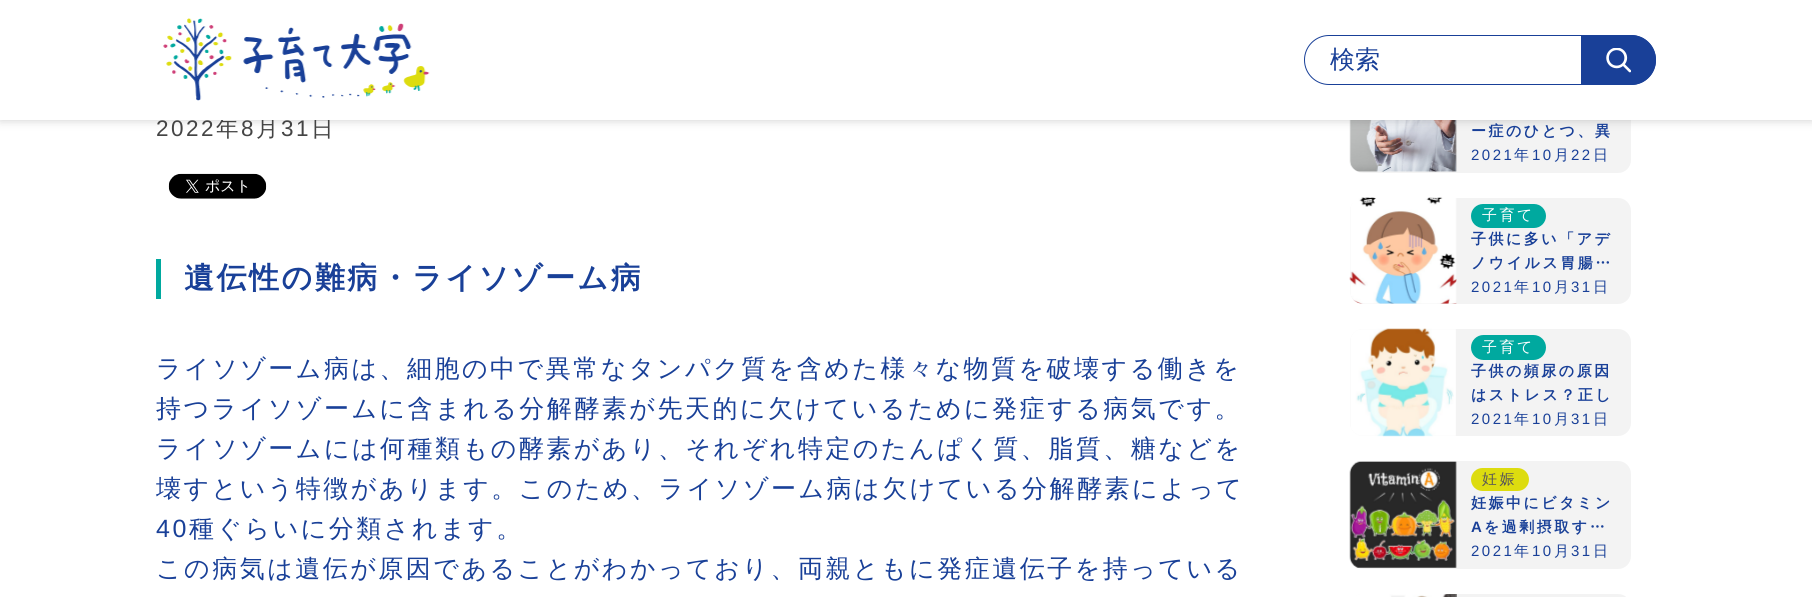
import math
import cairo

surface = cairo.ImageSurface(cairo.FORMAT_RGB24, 1812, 597)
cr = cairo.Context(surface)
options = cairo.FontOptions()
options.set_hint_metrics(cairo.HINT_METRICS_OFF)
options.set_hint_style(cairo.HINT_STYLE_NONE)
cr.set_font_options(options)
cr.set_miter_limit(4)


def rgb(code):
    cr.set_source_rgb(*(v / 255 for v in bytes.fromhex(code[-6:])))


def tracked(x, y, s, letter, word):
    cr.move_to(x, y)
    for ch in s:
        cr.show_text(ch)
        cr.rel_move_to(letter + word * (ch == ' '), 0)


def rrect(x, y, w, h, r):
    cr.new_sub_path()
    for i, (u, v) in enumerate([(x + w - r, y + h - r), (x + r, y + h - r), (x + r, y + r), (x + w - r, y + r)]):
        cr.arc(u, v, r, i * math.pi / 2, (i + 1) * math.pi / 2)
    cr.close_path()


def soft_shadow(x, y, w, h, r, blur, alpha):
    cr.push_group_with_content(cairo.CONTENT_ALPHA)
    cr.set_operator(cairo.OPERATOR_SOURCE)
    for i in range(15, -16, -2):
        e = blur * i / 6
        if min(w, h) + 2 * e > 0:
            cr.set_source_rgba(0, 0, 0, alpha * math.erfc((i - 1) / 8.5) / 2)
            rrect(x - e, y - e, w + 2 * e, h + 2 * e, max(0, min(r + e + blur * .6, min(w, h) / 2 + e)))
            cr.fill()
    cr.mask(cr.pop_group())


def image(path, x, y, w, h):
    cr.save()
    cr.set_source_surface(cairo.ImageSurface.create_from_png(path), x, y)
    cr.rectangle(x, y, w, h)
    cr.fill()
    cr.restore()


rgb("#ffffff")
cr.paint()
rgb("#f3f3f3")
rrect(1350, 65, 281, 108, 13)
cr.fill()
image("img/4.png", 1349, 120, 108, 52)
rgb("#000000")
soft_shadow(0, 0, 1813, 120, 0, 5, 0.2)
image("img/3.png", 168, 173, 99, 26)
rgb("#00a99f")
cr.rectangle(156, 259, 5, 40)
cr.fill()
rgb("#f3f3f3")
rrect(1350, 198, 281, 106, 13)
cr.fill()
image("img/5.png", 1349, 197, 108, 107)
rgb("#00a99f")
rrect(1471, 204, 75, 24, 12)
cr.fill()
rgb("#f3f3f3")
rrect(1350, 329, 281, 107, 13)
cr.fill()
image("img/6.png", 1350, 328, 106, 109)
rgb("#00a99f")
rrect(1471, 335, 75, 25, 12.5)
cr.fill()
rgb("#f3f3f3")
rrect(1350, 461, 281, 108, 13)
cr.fill()
image("img/7.png", 1349, 461, 108, 107)
rgb("#dddc0f")
rrect(1471, 468, 58, 23, 11.5)
cr.fill()
rgb("#f3f3f3")
rrect(1350, 594, 281, 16, 13)
cr.fill()
image("img/8.png", 1355, 594, 102, 3)
cr.select_font_face("Liberation Sans")
cr.set_font_size(22.5)
rgb("#444444")
tracked(156, 136, "2022", 2.5, 0)
cr.select_font_face("WenQuanYi Zen Hei Medium")
tracked(216, 136, "年", 2.5, 0)
cr.select_font_face("Liberation Sans")
tracked(241, 136, "8", 2.5, 0)
cr.select_font_face("WenQuanYi Zen Hei Medium")
tracked(256, 136, "月", 2.5, 0)
cr.select_font_face("Liberation Sans")
tracked(281, 136, "31", 2.5, 0)
cr.select_font_face("WenQuanYi Zen Hei Medium")
tracked(311, 136, "日", 2.5, 0)
rgb("#ffffff")
cr.rectangle(0, 0, 1812, 120)
cr.fill()
rrect(1304.5, 35.5, 351, 49, 24.5)
rgb("#194098")
cr.set_line_width(1)
cr.stroke()
cr.new_path()
cr.move_to(1581, 35)
cr.line_to(1631, 35)
cr.curve_to(1645, 35, 1656, 46, 1656, 60)
cr.curve_to(1656, 74, 1645, 85, 1631, 85)
cr.line_to(1581, 85)
cr.close_path()
cr.fill()
image("img/2.png", 1606, 48, 25, 25)
cr.set_font_size(25)
cr.move_to(1330, 68)
cr.show_text("検索")
image("img/1.png", 163, 18, 267, 83)
cr.select_font_face("WenQuanYi Zen Hei", cairo.FONT_SLANT_NORMAL, cairo.FONT_WEIGHT_BOLD)
cr.set_font_size(30)
tracked(184, 288, "遺伝性の難病・ライソゾーム病", 2.5, 0)
cr.select_font_face("WenQuanYi Zen Hei Medium")
cr.set_font_size(25)
for x, y, s in [
    (156, 377, "ライソゾーム病は、細胞の中で異常なタンパク質を含めた様々な物質を破壊する働きを"),
    (156, 417, "持つライソゾームに含まれる分解酵素が先天的に欠けているために発症する病気です。"),
    (156, 457, "ライソゾームには何種類もの酵素があり、それぞれ特定のたんぱく質、脂質、糖などを"),
    (156, 497, "壊すという特徴があります。このため、ライソゾーム病は欠けている分解酵素によって"),
]:
    tracked(x, y, s, 2.5, 0)
cr.select_font_face("Liberation Sans")
tracked(156, 537, "40", 2.5, 0)
cr.select_font_face("WenQuanYi Zen Hei Medium")
tracked(189, 537, "種ぐらいに分類されます。", 2.5, 0)
tracked(156, 577, "この病気は遺伝が原因であることがわかっており、両親ともに発症遺伝子を持っている", 2.5, 0)
cr.select_font_face("WenQuanYi Zen Hei", cairo.FONT_SLANT_NORMAL, cairo.FONT_WEIGHT_BOLD)
cr.set_font_size(15)
tracked(1471, 136, "ー症のひとつ、異", 2.5, 0)
cr.select_font_face("Liberation Sans")
tracked(1471, 160, "2021", 2.5, 0)
cr.select_font_face("WenQuanYi Zen Hei Medium")
tracked(1514, 160, "年", 2.5, 0)
cr.select_font_face("Liberation Sans")
tracked(1532, 160, "10", 2.5, 0)
cr.select_font_face("WenQuanYi Zen Hei Medium")
tracked(1554, 160, "月", 2.5, 0)
cr.select_font_face("Liberation Sans")
tracked(1571, 160, "22", 2.5, 0)
cr.select_font_face("WenQuanYi Zen Hei Medium")
tracked(1593, 160, "日", 2.5, 0)
rgb("#ffffff")
tracked(1482, 220, "子育て", 2.5, 0)
cr.select_font_face("WenQuanYi Zen Hei", cairo.FONT_SLANT_NORMAL, cairo.FONT_WEIGHT_BOLD)
rgb("#194098")
tracked(1471, 244, "子供に多い「アデ", 2.5, 0)
tracked(1471, 268, "ノウイルス胃腸…", 2.5, 0)
cr.select_font_face("Liberation Sans")
tracked(1471, 292, "2021", 2.5, 0)
cr.select_font_face("WenQuanYi Zen Hei Medium")
tracked(1514, 292, "年", 2.5, 0)
cr.select_font_face("Liberation Sans")
tracked(1532, 292, "10", 2.5, 0)
cr.select_font_face("WenQuanYi Zen Hei Medium")
tracked(1554, 292, "月", 2.5, 0)
cr.select_font_face("Liberation Sans")
tracked(1571, 292, "31", 2.5, 0)
cr.select_font_face("WenQuanYi Zen Hei Medium")
tracked(1593, 292, "日", 2.5, 0)
rgb("#ffffff")
tracked(1482, 352, "子育て", 2.5, 0)
cr.select_font_face("WenQuanYi Zen Hei", cairo.FONT_SLANT_NORMAL, cairo.FONT_WEIGHT_BOLD)
rgb("#194098")
tracked(1471, 376, "子供の頻尿の原因", 2.5, 0)
tracked(1471, 400, "はストレス？正し", 2.5, 0)
cr.select_font_face("Liberation Sans")
tracked(1471, 424, "2021", 2.5, 0)
cr.select_font_face("WenQuanYi Zen Hei Medium")
tracked(1514, 424, "年", 2.5, 0)
cr.select_font_face("Liberation Sans")
tracked(1532, 424, "10", 2.5, 0)
cr.select_font_face("WenQuanYi Zen Hei Medium")
tracked(1554, 424, "月", 2.5, 0)
cr.select_font_face("Liberation Sans")
tracked(1571, 424, "31", 2.5, 0)
cr.select_font_face("WenQuanYi Zen Hei Medium")
tracked(1593, 424, "日", 2.5, 0)
rgb("#595757")
tracked(1482, 484, "妊娠", 2.5, 0)
cr.select_font_face("WenQuanYi Zen Hei", cairo.FONT_SLANT_NORMAL, cairo.FONT_WEIGHT_BOLD)
rgb("#194098")
tracked(1471, 508, "妊娠中にビタミン", 2.5, 0)
cr.select_font_face("Liberation Sans", cairo.FONT_SLANT_NORMAL, cairo.FONT_WEIGHT_BOLD)
tracked(1471, 532, "A", 2.5, 0)
cr.select_font_face("WenQuanYi Zen Hei", cairo.FONT_SLANT_NORMAL, cairo.FONT_WEIGHT_BOLD)
tracked(1484, 532, "を過剰摂取す…", 2.5, 0)
cr.select_font_face("Liberation Sans")
tracked(1471, 556, "2021", 2.5, 0)
cr.select_font_face("WenQuanYi Zen Hei Medium")
tracked(1514, 556, "年", 2.5, 0)
cr.select_font_face("Liberation Sans")
tracked(1532, 556, "10", 2.5, 0)
cr.select_font_face("WenQuanYi Zen Hei Medium")
tracked(1554, 556, "月", 2.5, 0)
cr.select_font_face("Liberation Sans")
tracked(1571, 556, "31", 2.5, 0)
cr.select_font_face("WenQuanYi Zen Hei Medium")
tracked(1593, 556, "日", 2.5, 0)
surface.write_to_png("page.png")
